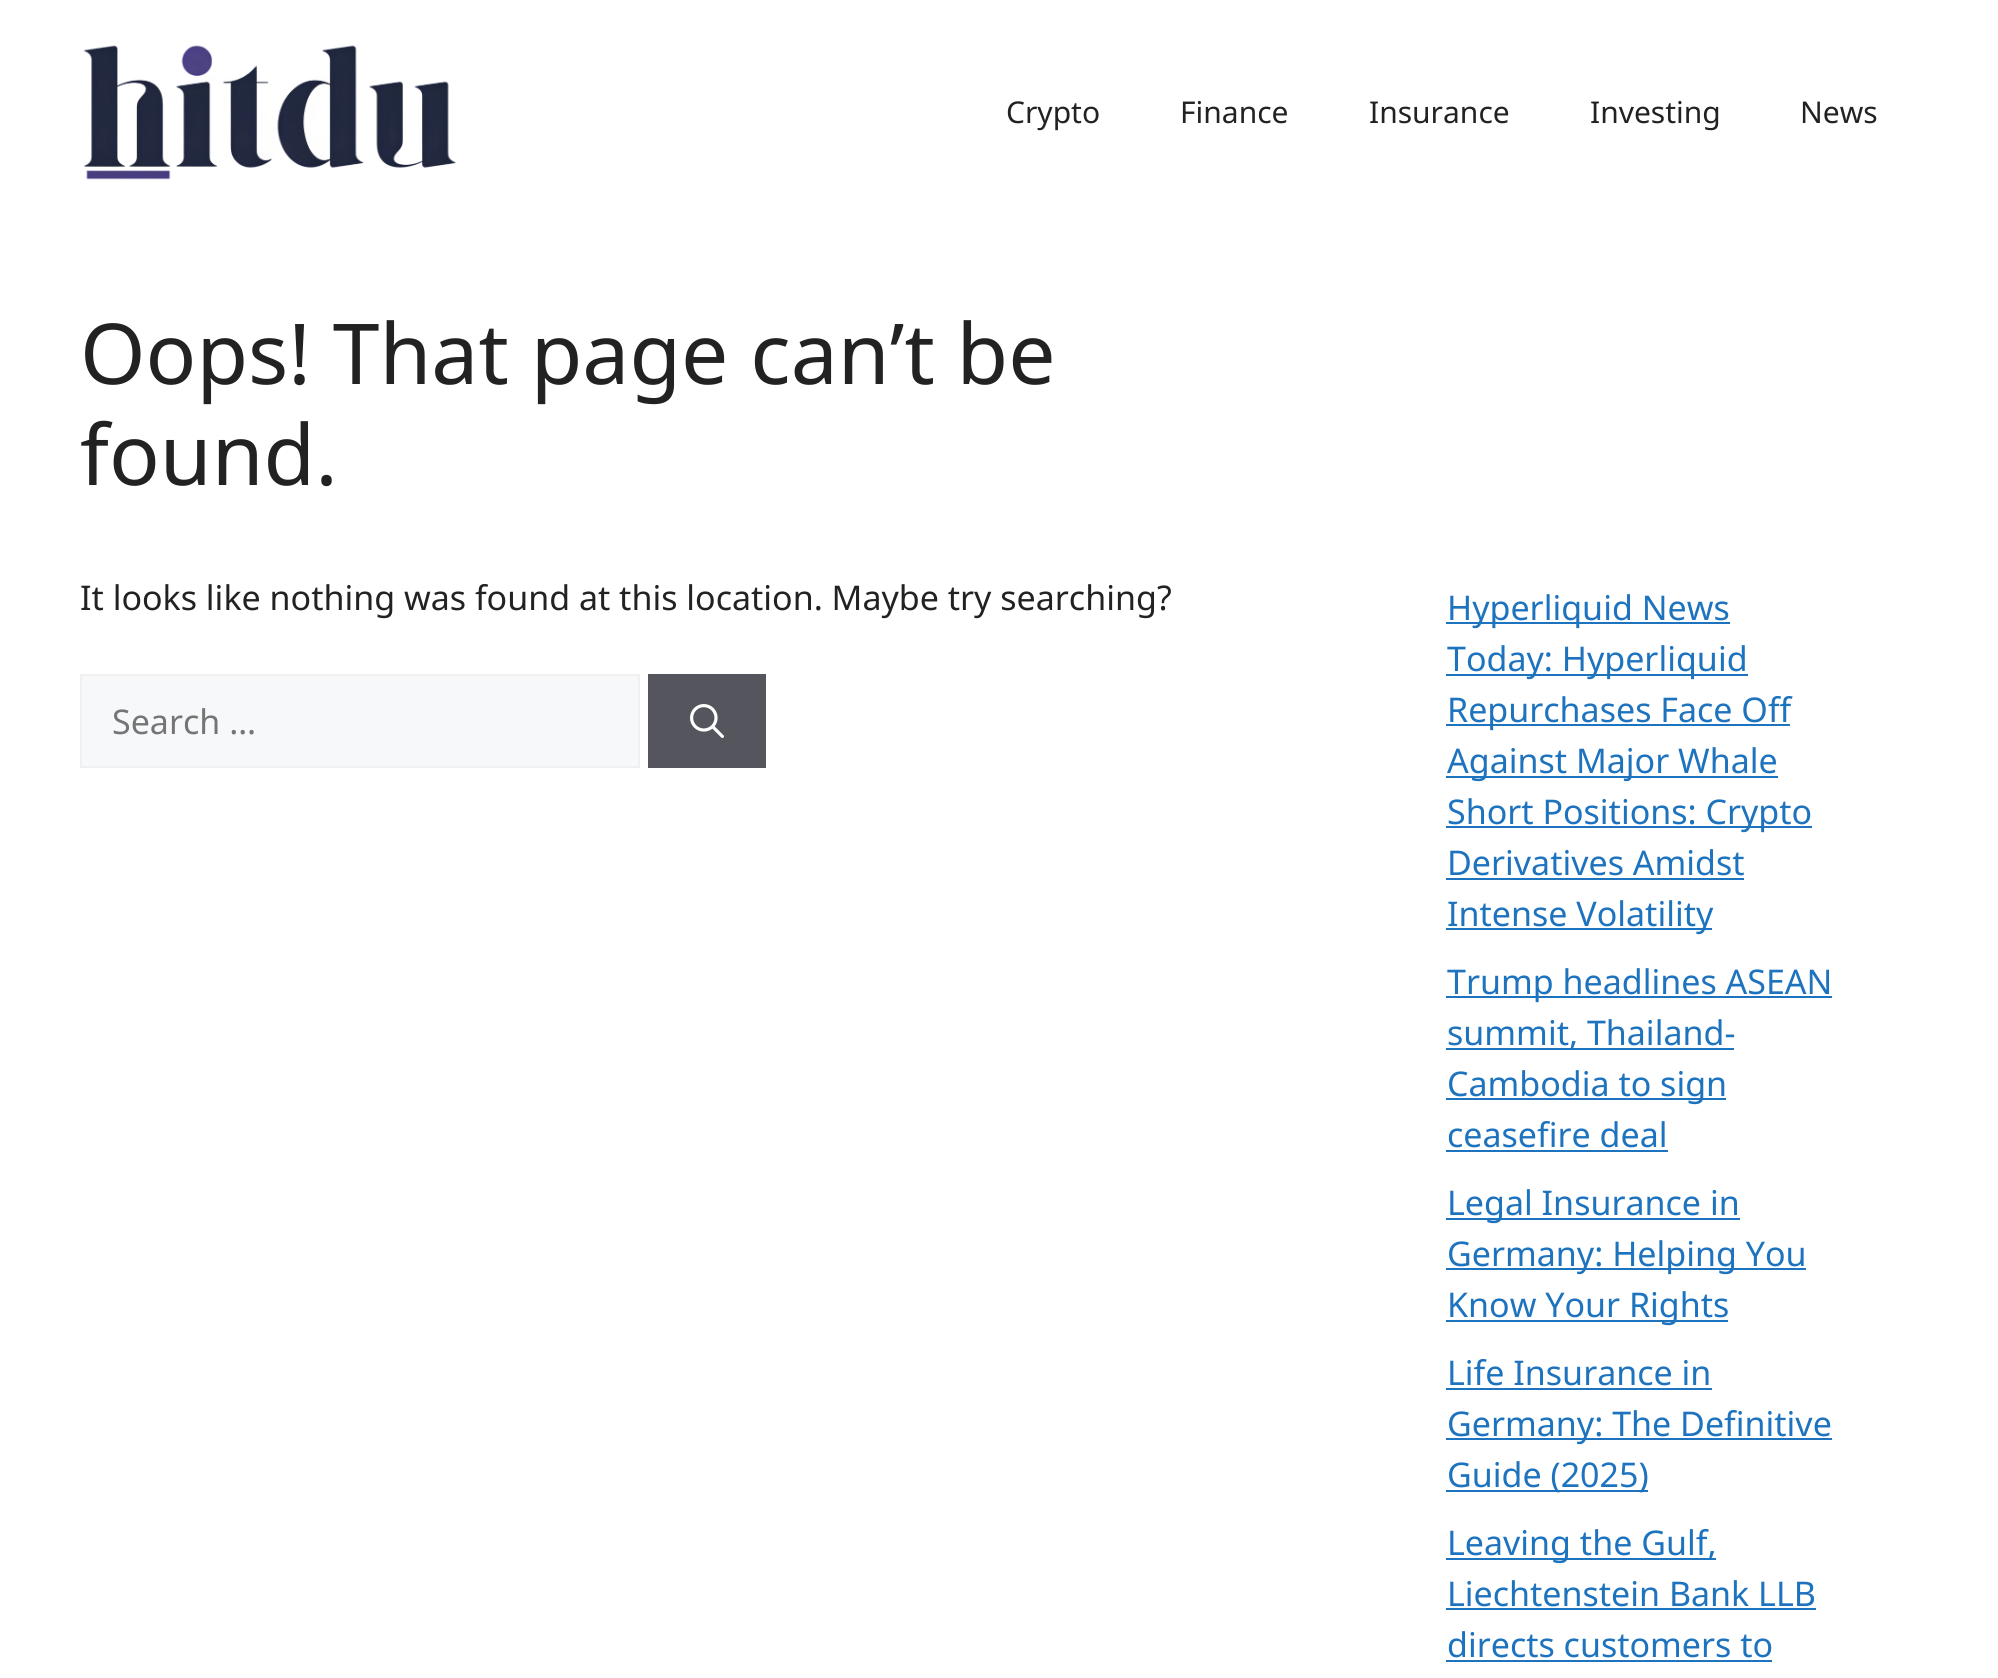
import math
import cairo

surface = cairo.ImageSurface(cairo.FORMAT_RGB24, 1998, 1678)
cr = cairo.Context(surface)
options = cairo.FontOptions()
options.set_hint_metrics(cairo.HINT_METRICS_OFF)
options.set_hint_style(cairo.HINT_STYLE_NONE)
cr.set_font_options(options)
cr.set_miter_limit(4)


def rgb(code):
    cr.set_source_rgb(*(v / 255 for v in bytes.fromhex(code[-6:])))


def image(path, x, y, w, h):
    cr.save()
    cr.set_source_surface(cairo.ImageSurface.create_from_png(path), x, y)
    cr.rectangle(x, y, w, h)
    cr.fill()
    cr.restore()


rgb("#ffffff")
cr.paint()
image("img/1.png", 83, 45, 373, 135)
rgb("#f7f8f9")
cr.rectangle(81, 675, 558, 92)
cr.fill_preserve()
rgb("#f0f0f0")
cr.stroke()
rgb("#55555e")
cr.rectangle(648, 674, 118, 94)
cr.fill()
image("img/2.png", 690, 704, 34, 34)
for x, y, w, h, color in [
    (1446, 622, 284, 2, "#1e73be"),
    (1446, 674, 302, 2, "#1e73be"),
    (1446, 724, 344, 2, "#1e73be"),
    (1446, 776, 332, 2, "#1e73be"),
    (1446, 826, 366, 2, "#1e73be"),
    (1446, 878, 298, 2, "#1e73be"),
    (1446, 928, 266, 2, "#1e73be"),
    (1446, 996, 386, 2, "#1e73be"),
    (1446, 1048, 288, 2, "#1e73be"),
    (1446, 1098, 280, 2, "#1e73be"),
    (1446, 1150, 222, 2, "#1e73be"),
    (1446, 1218, 294, 2, "#1e73be"),
    (1446, 1268, 360, 2, "#1e73be"),
    (1446, 1320, 282, 2, "#1e73be"),
    (1446, 1388, 266, 2, "#1e73be"),
    (1446, 1438, 386, 2, "#1e73be"),
    (1446, 1490, 202, 2, "#1e73be"),
    (1446, 1558, 270, 2, "#1e73be"),
    (1446, 1608, 370, 2, "#1e73be"),
    (1446, 1660, 326, 2, "#1e73be"),
]:
    rgb(color)
    cr.rectangle(x, y, w, h)
    cr.fill()
cr.select_font_face("Noto Sans")
cr.set_font_size(30)
rgb("#222222")
for x, y, s in [
    (1006, 123, "Crypto"),
    (1180, 123, "Finance"),
    (1369, 123, "Insurance"),
    (1590, 123, "Investing"),
    (1800, 123, "News"),
]:
    cr.move_to(x, y)
    cr.show_text(s)
cr.set_font_size(84)
cr.move_to(80, 384)
cr.show_text("Oops! That page can’t be")
cr.move_to(80, 485)
cr.show_text("found.")
cr.set_font_size(34)
cr.move_to(80, 610)
cr.show_text("It looks like nothing was found at this location. Maybe try searching?")
rgb("#757575")
cr.move_to(112, 734)
cr.show_text("Search …")
rgb("#1e73be")
for x, y, s in [
    (1447, 620, "Hyperliquid News"),
    (1447, 671, "Today: Hyperliquid"),
    (1447, 722, "Repurchases Face Off"),
    (1447, 773, "Against Major Whale"),
    (1447, 824, "Short Positions: Crypto"),
    (1447, 875, "Derivatives Amidst"),
    (1447, 926, "Intense Volatility"),
    (1447, 994, "Trump headlines ASEAN"),
    (1447, 1045, "summit, Thailand-"),
    (1447, 1096, "Cambodia to sign"),
    (1447, 1147, "ceasefire deal"),
    (1447, 1215, "Legal Insurance in"),
    (1447, 1266, "Germany: Helping You"),
    (1447, 1317, "Know Your Rights"),
    (1447, 1385, "Life Insurance in"),
    (1447, 1436, "Germany: The Definitive"),
    (1447, 1487, "Guide (2025)"),
    (1447, 1555, "Leaving the Gulf,"),
    (1447, 1606, "Liechtenstein Bank LLB"),
    (1447, 1657, "directs customers to"),
]:
    cr.move_to(x, y)
    cr.show_text(s)
surface.write_to_png("page.png")
